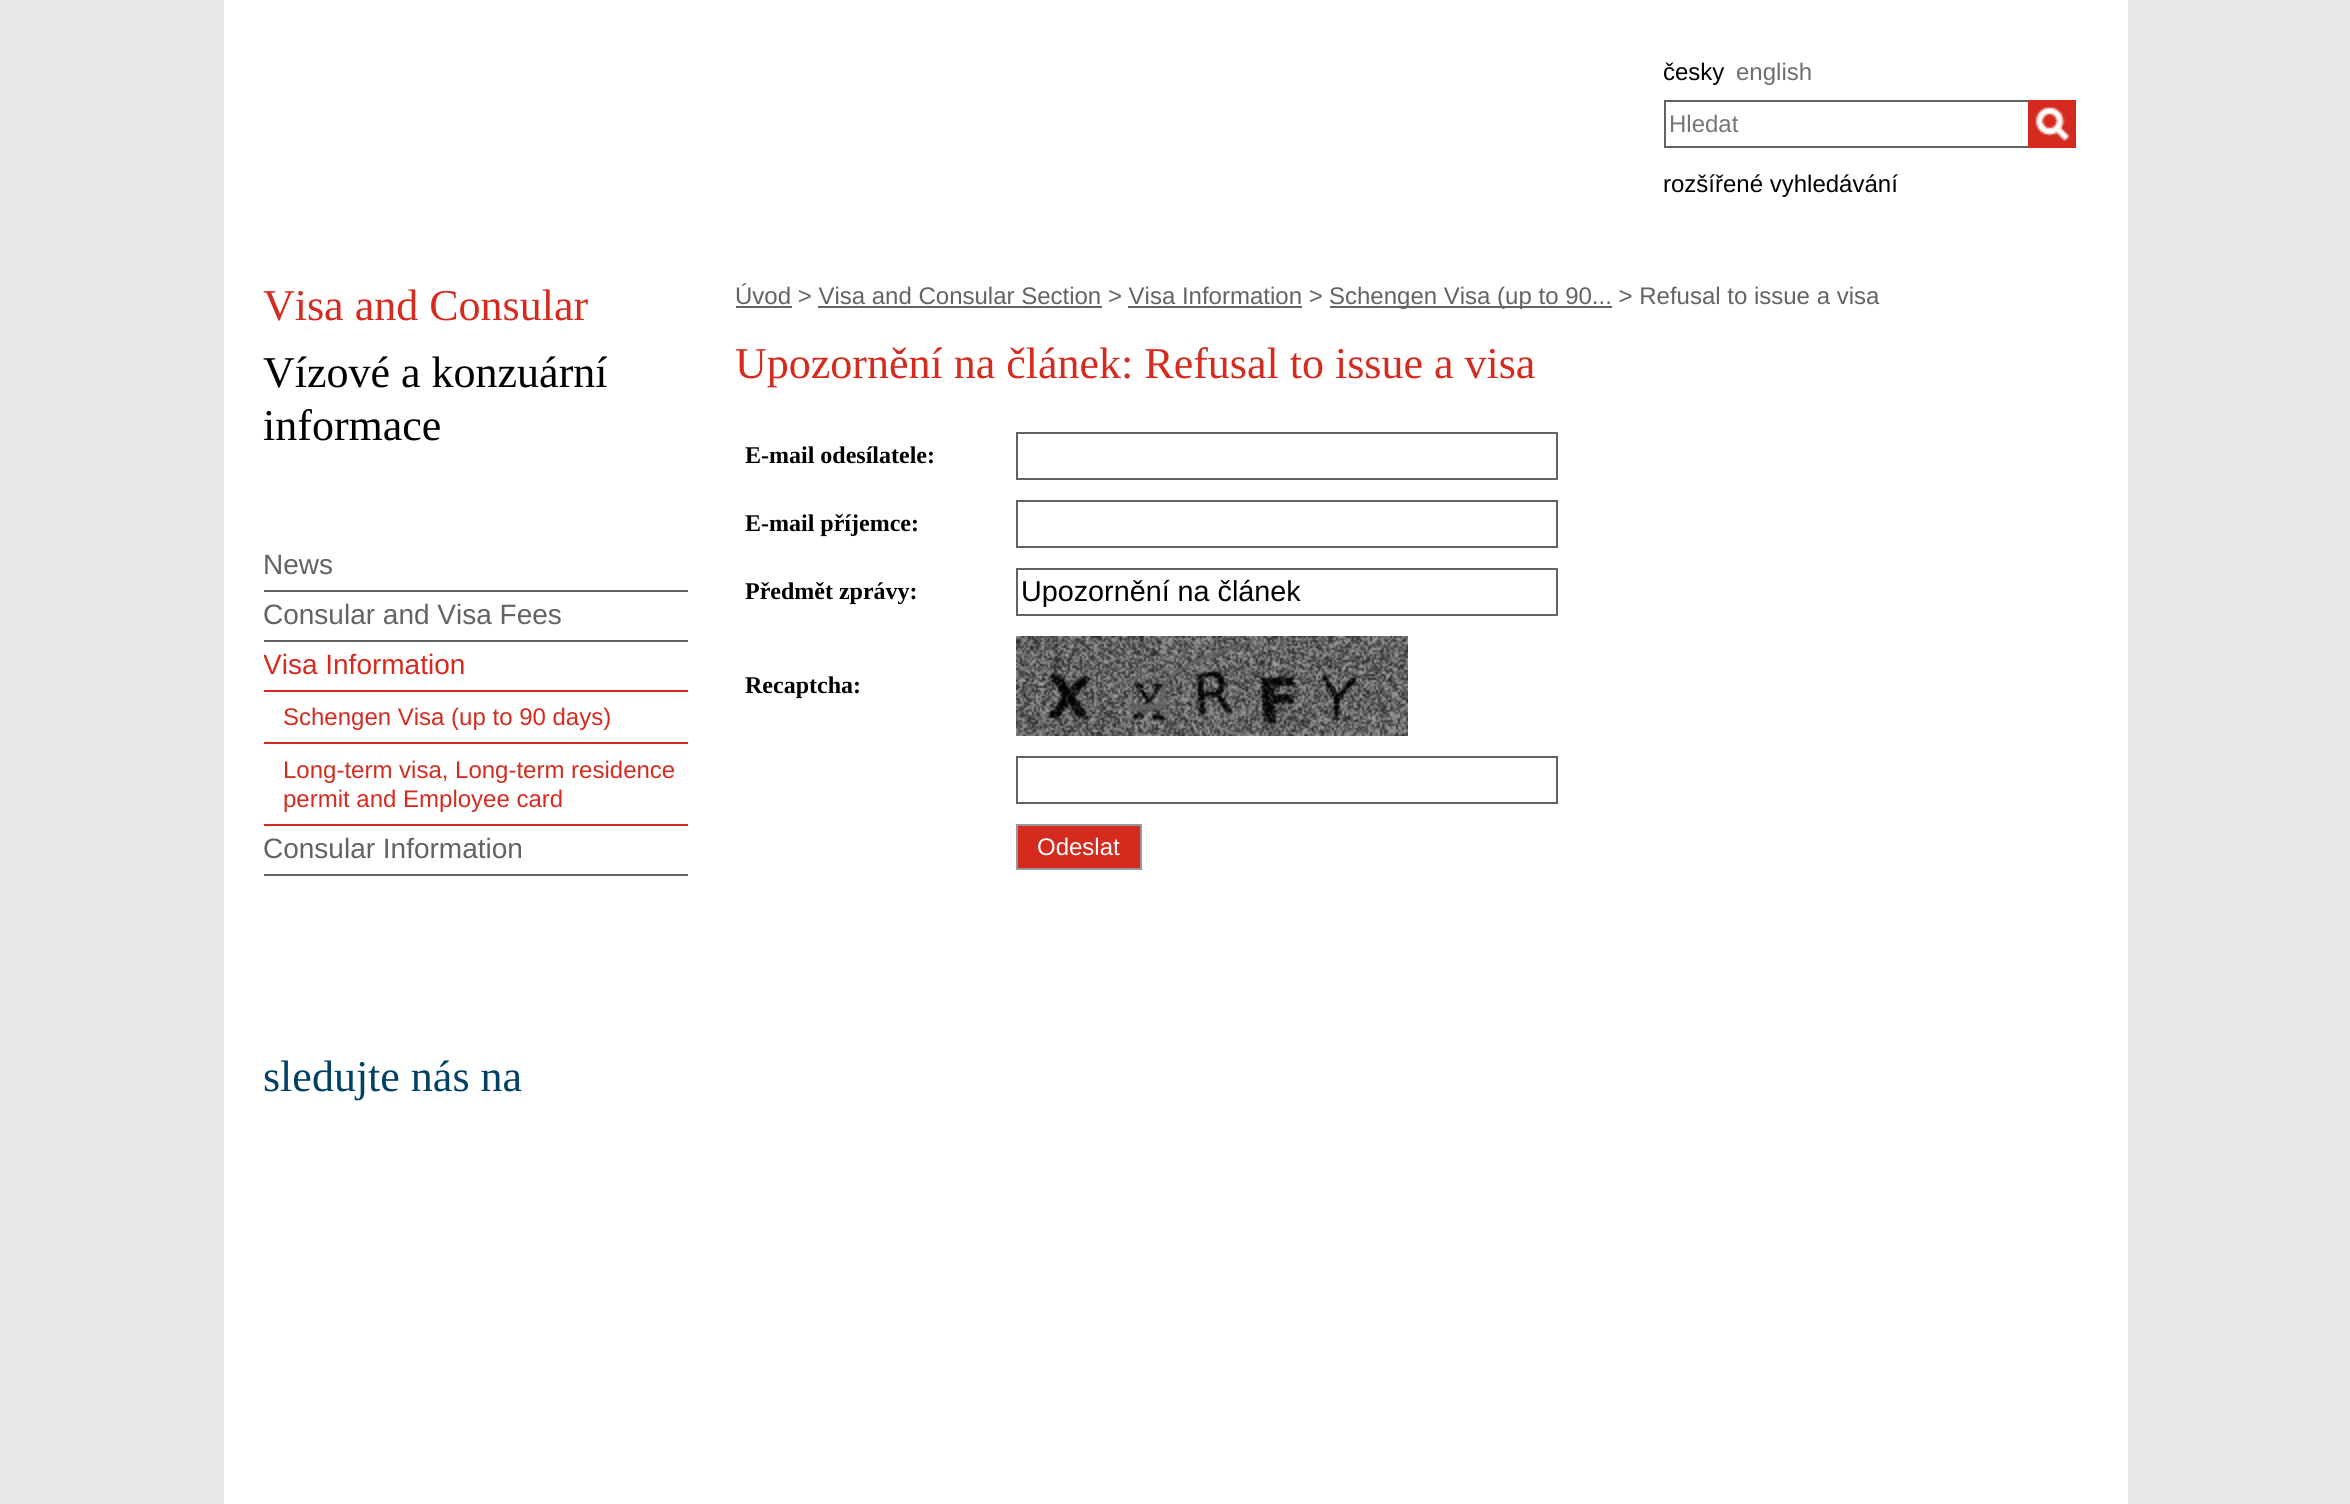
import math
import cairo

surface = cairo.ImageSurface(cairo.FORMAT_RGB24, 2350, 1504)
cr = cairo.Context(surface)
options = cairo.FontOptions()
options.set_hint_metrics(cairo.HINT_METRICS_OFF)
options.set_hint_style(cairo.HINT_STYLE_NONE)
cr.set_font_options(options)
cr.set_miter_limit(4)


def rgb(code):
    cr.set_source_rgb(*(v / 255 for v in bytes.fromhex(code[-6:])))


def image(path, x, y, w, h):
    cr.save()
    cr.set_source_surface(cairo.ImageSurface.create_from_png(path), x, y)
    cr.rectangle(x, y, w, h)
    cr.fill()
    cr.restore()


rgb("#e7e7e7")
cr.paint()
for x, y, w, h, color in [
    (224, 0, 1904, 1504, "#ffffff"),
    (1664, 100, 364, 2, "#616365"),
    (1664, 146, 364, 2, "#616365"),
    (1664, 100, 2, 48, "#616365"),
]:
    rgb(color)
    cr.rectangle(x, y, w, h)
    cr.fill()
image("img/1.png", 2028, 100, 48, 48)
for x, y, w, h, color in [
    (736, 306, 56, 2, "#616365"),
    (1330, 306, 282, 2, "#616365"),
    (818, 306, 284, 2, "#616365"),
    (1128, 306, 174, 2, "#616365"),
]:
    rgb(color)
    cr.rectangle(x, y, w, h)
    cr.fill()
cr.rectangle(1017, 433, 540, 46)
cr.stroke()
cr.rectangle(1017, 501, 540, 46)
cr.stroke()
cr.rectangle(1017, 569, 540, 46)
cr.stroke()
image("img/2.png", 1016, 636, 392, 100)
cr.rectangle(1017, 757, 540, 46)
cr.stroke()
rgb("#d52b1e")
cr.rectangle(1017, 825, 124, 44)
cr.fill_preserve()
rgb("#999999")
cr.stroke()
for x, y, w, h, color in [
    (264, 590, 424, 2, "#616365"),
    (264, 640, 424, 2, "#616365"),
    (264, 690, 424, 2, "#d52b1e"),
    (264, 742, 424, 2, "#d52b1e"),
    (264, 824, 424, 2, "#d52b1e"),
    (264, 874, 424, 2, "#616365"),
]:
    rgb(color)
    cr.rectangle(x, y, w, h)
    cr.fill()
cr.select_font_face("Liberation Sans")
cr.set_font_size(24)
rgb("#000000")
cr.move_to(1663, 80)
cr.show_text("česky")
rgb("#6d6f72")
cr.move_to(1736, 80)
cr.show_text("english")
rgb("#757575")
cr.move_to(1669, 132)
cr.show_text("Hledat")
rgb("#000000")
cr.move_to(1663, 192)
cr.show_text("rozšířené vyhledávání")
cr.select_font_face("Liberation Serif")
cr.set_font_size(44)
rgb("#d52b1e")
cr.move_to(263, 320)
cr.show_text("Visa and Consular")
rgb("#000000")
cr.move_to(263, 387)
cr.show_text("Vízové a konzuární")
cr.move_to(263, 440)
cr.show_text("informace")
cr.select_font_face("Liberation Sans")
cr.set_font_size(24)
rgb("#616365")
cr.move_to(735, 304)
cr.show_text("Úvod > Visa and Consular Section > Visa Information >")
cr.move_to(1329, 304)
cr.show_text("Schengen Visa (up to 90... > Refusal to issue a visa")
cr.select_font_face("Liberation Serif")
cr.set_font_size(44)
rgb("#d52b1e")
cr.move_to(735, 378)
cr.show_text("Upozornění na článek: Refusal to issue a visa")
cr.select_font_face("Liberation Serif", cairo.FONT_SLANT_NORMAL, cairo.FONT_WEIGHT_BOLD)
cr.set_font_size(24)
rgb("#000000")
for x, y, s in [
    (745, 463, "E-mail odesílatele:"),
    (745, 531, "E-mail příjemce:"),
    (745, 599, "Předmět zprávy:"),
]:
    cr.move_to(x, y)
    cr.show_text(s)
cr.select_font_face("Liberation Sans")
cr.set_font_size(28.75)
cr.move_to(1021, 601)
cr.show_text("Upozornění na článek")
cr.select_font_face("Liberation Serif", cairo.FONT_SLANT_NORMAL, cairo.FONT_WEIGHT_BOLD)
cr.set_font_size(24)
cr.move_to(745, 693)
cr.show_text("Recaptcha:")
cr.select_font_face("Liberation Sans")
rgb("#ffffff")
cr.move_to(1037, 855)
cr.show_text("Odeslat")
cr.set_font_size(28)
rgb("#616365")
cr.move_to(263, 574)
cr.show_text("News")
cr.move_to(263, 624)
cr.show_text("Consular and Visa Fees")
cr.save()
cr.rectangle(264, 542, 424, 334)
cr.clip()
rgb("#d52b1e")
cr.move_to(263, 674)
cr.show_text("Visa Information")
cr.restore()
cr.set_font_size(24)
rgb("#d52b1e")
for x, y, s in [
    (283, 725, "Schengen Visa (up to 90 days)"),
    (283, 778, "Long-term visa, Long-term residence"),
    (283, 807, "permit and Employee card"),
]:
    cr.move_to(x, y)
    cr.show_text(s)
cr.set_font_size(28)
rgb("#616365")
cr.move_to(263, 858)
cr.show_text("Consular Information")
cr.select_font_face("Liberation Serif")
cr.set_font_size(44)
rgb("#004165")
cr.move_to(263, 1091)
cr.show_text("sledujte nás na")
surface.write_to_png("page.png")
